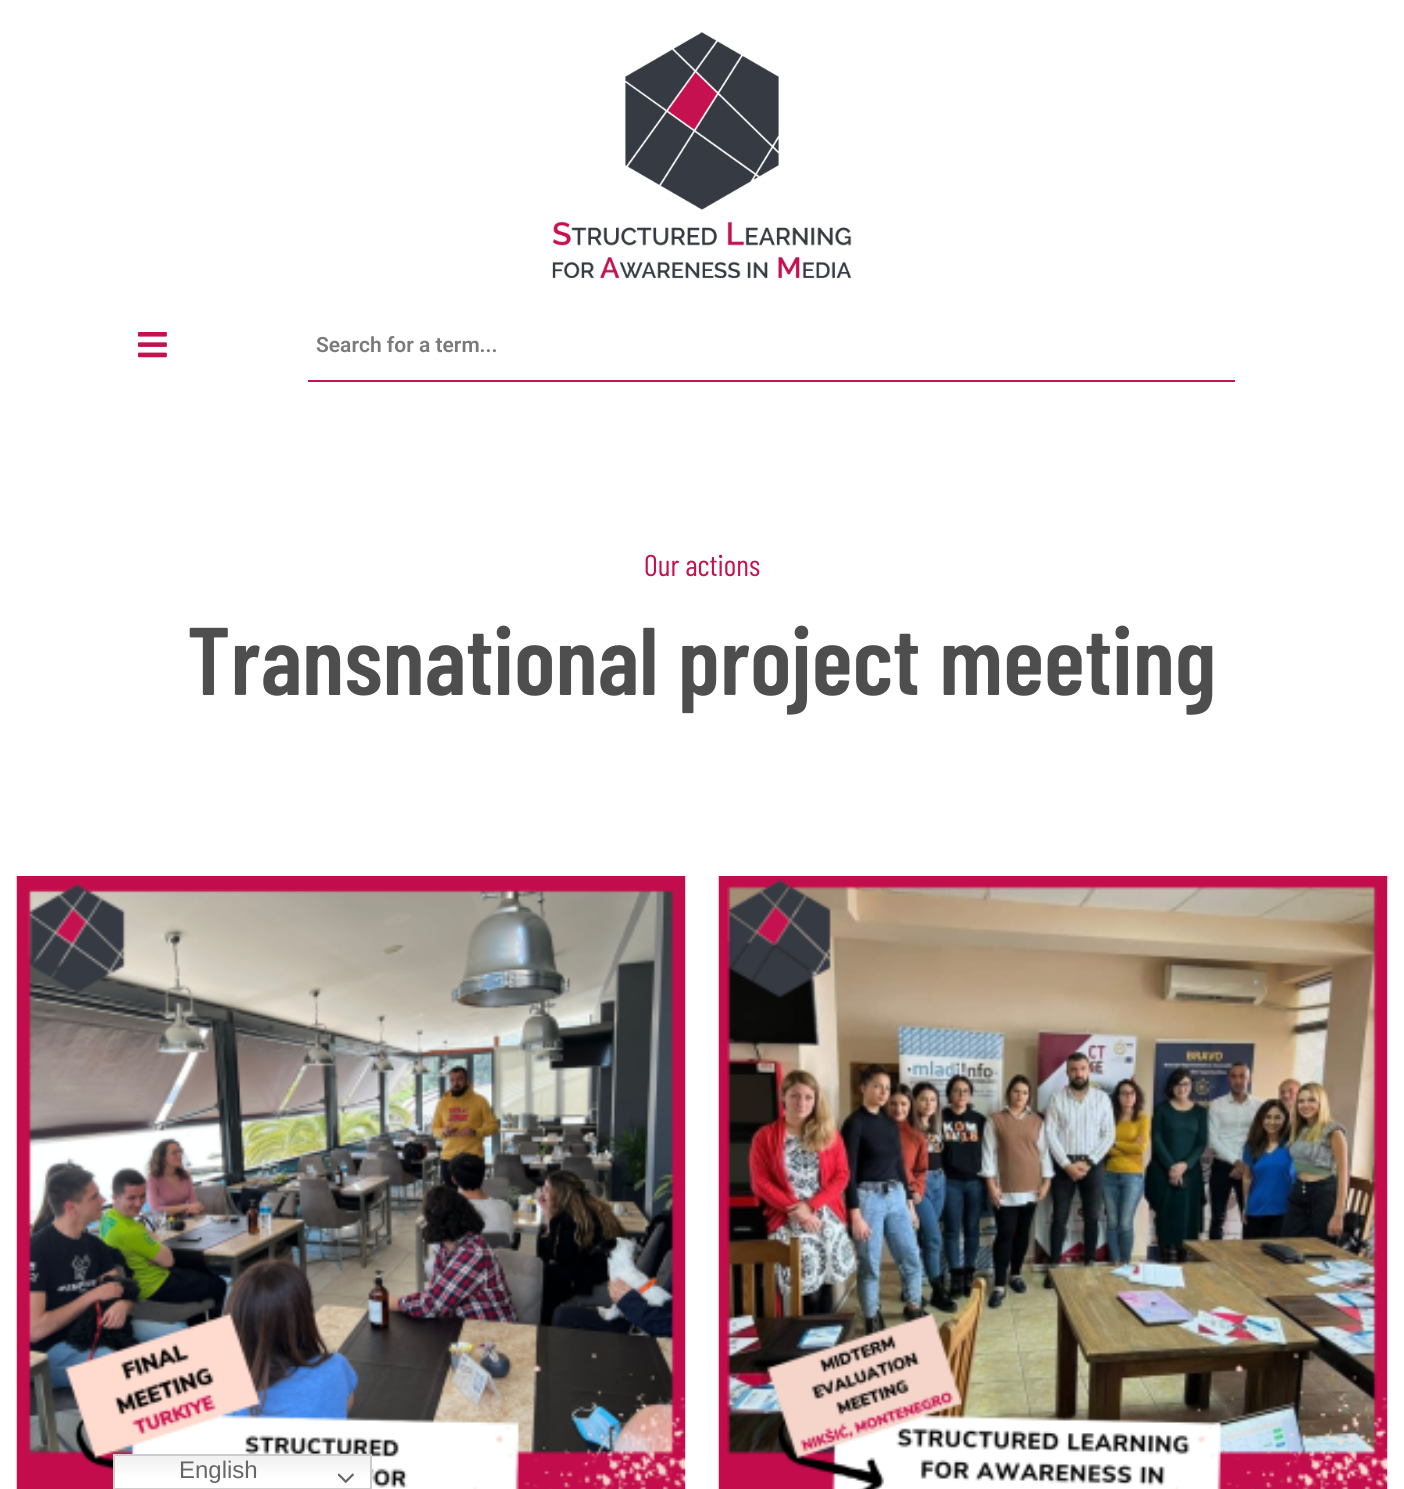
import math
import cairo

surface = cairo.ImageSurface(cairo.FORMAT_RGB24, 1404, 1489)
cr = cairo.Context(surface)
options = cairo.FontOptions()
options.set_hint_metrics(cairo.HINT_METRICS_OFF)
options.set_hint_style(cairo.HINT_STYLE_NONE)
cr.set_font_options(options)
cr.set_miter_limit(4)


def rgb(code):
    cr.set_source_rgb(*(v / 255 for v in bytes.fromhex(code[-6:])))


def image(path, x, y, w, h):
    cr.save()
    cr.set_source_surface(cairo.ImageSurface.create_from_png(path), x, y)
    cr.rectangle(x, y, w, h)
    cr.fill()
    cr.restore()


rgb("#ffffff")
cr.paint()
image("img/1.png", 552, 32, 300, 247)
image("img/2.png", 138, 332, 29, 26)
rgb("#c5114e")
cr.rectangle(308, 380, 927, 2)
cr.fill()
image("img/3.png", 16, 876, 670, 613)
image("img/4.png", 718, 876, 670, 613)
gradient = cairo.LinearGradient(242, 1454, 242, 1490)
gradient.add_color_stop_rgba(0, 0.937, 0.937, 0.937, 1)
gradient.add_color_stop_rgba(0.7, 1, 1, 1, 1)
cr.set_source(gradient)
cr.rectangle(115, 1456, 255, 32)
cr.fill()
cr.rectangle(114, 1455, 257, 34)
rgb("#cccccc")
cr.stroke()
image("img/5.png", 338, 1473, 16, 10)
cr.select_font_face("Roboto SemiBold")
cr.set_font_size(21)
rgb("#7a7a7a")
cr.move_to(316, 352)
cr.show_text("Search for a term...")
cr.select_font_face("Barlow Condensed")
cr.set_font_size(30)
rgb("#c5114e")
cr.move_to(644, 576)
cr.show_text("Our actions")
cr.select_font_face("Barlow Condensed SemiBold")
cr.set_font_size(96)
rgb("#4e4e4e")
cr.move_to(187, 695)
cr.show_text("Transnational project meeting")
cr.select_font_face("Liberation Sans")
cr.set_font_size(24)
rgb("#666666")
cr.move_to(179, 1478)
cr.show_text("English")
surface.write_to_png("page.png")
